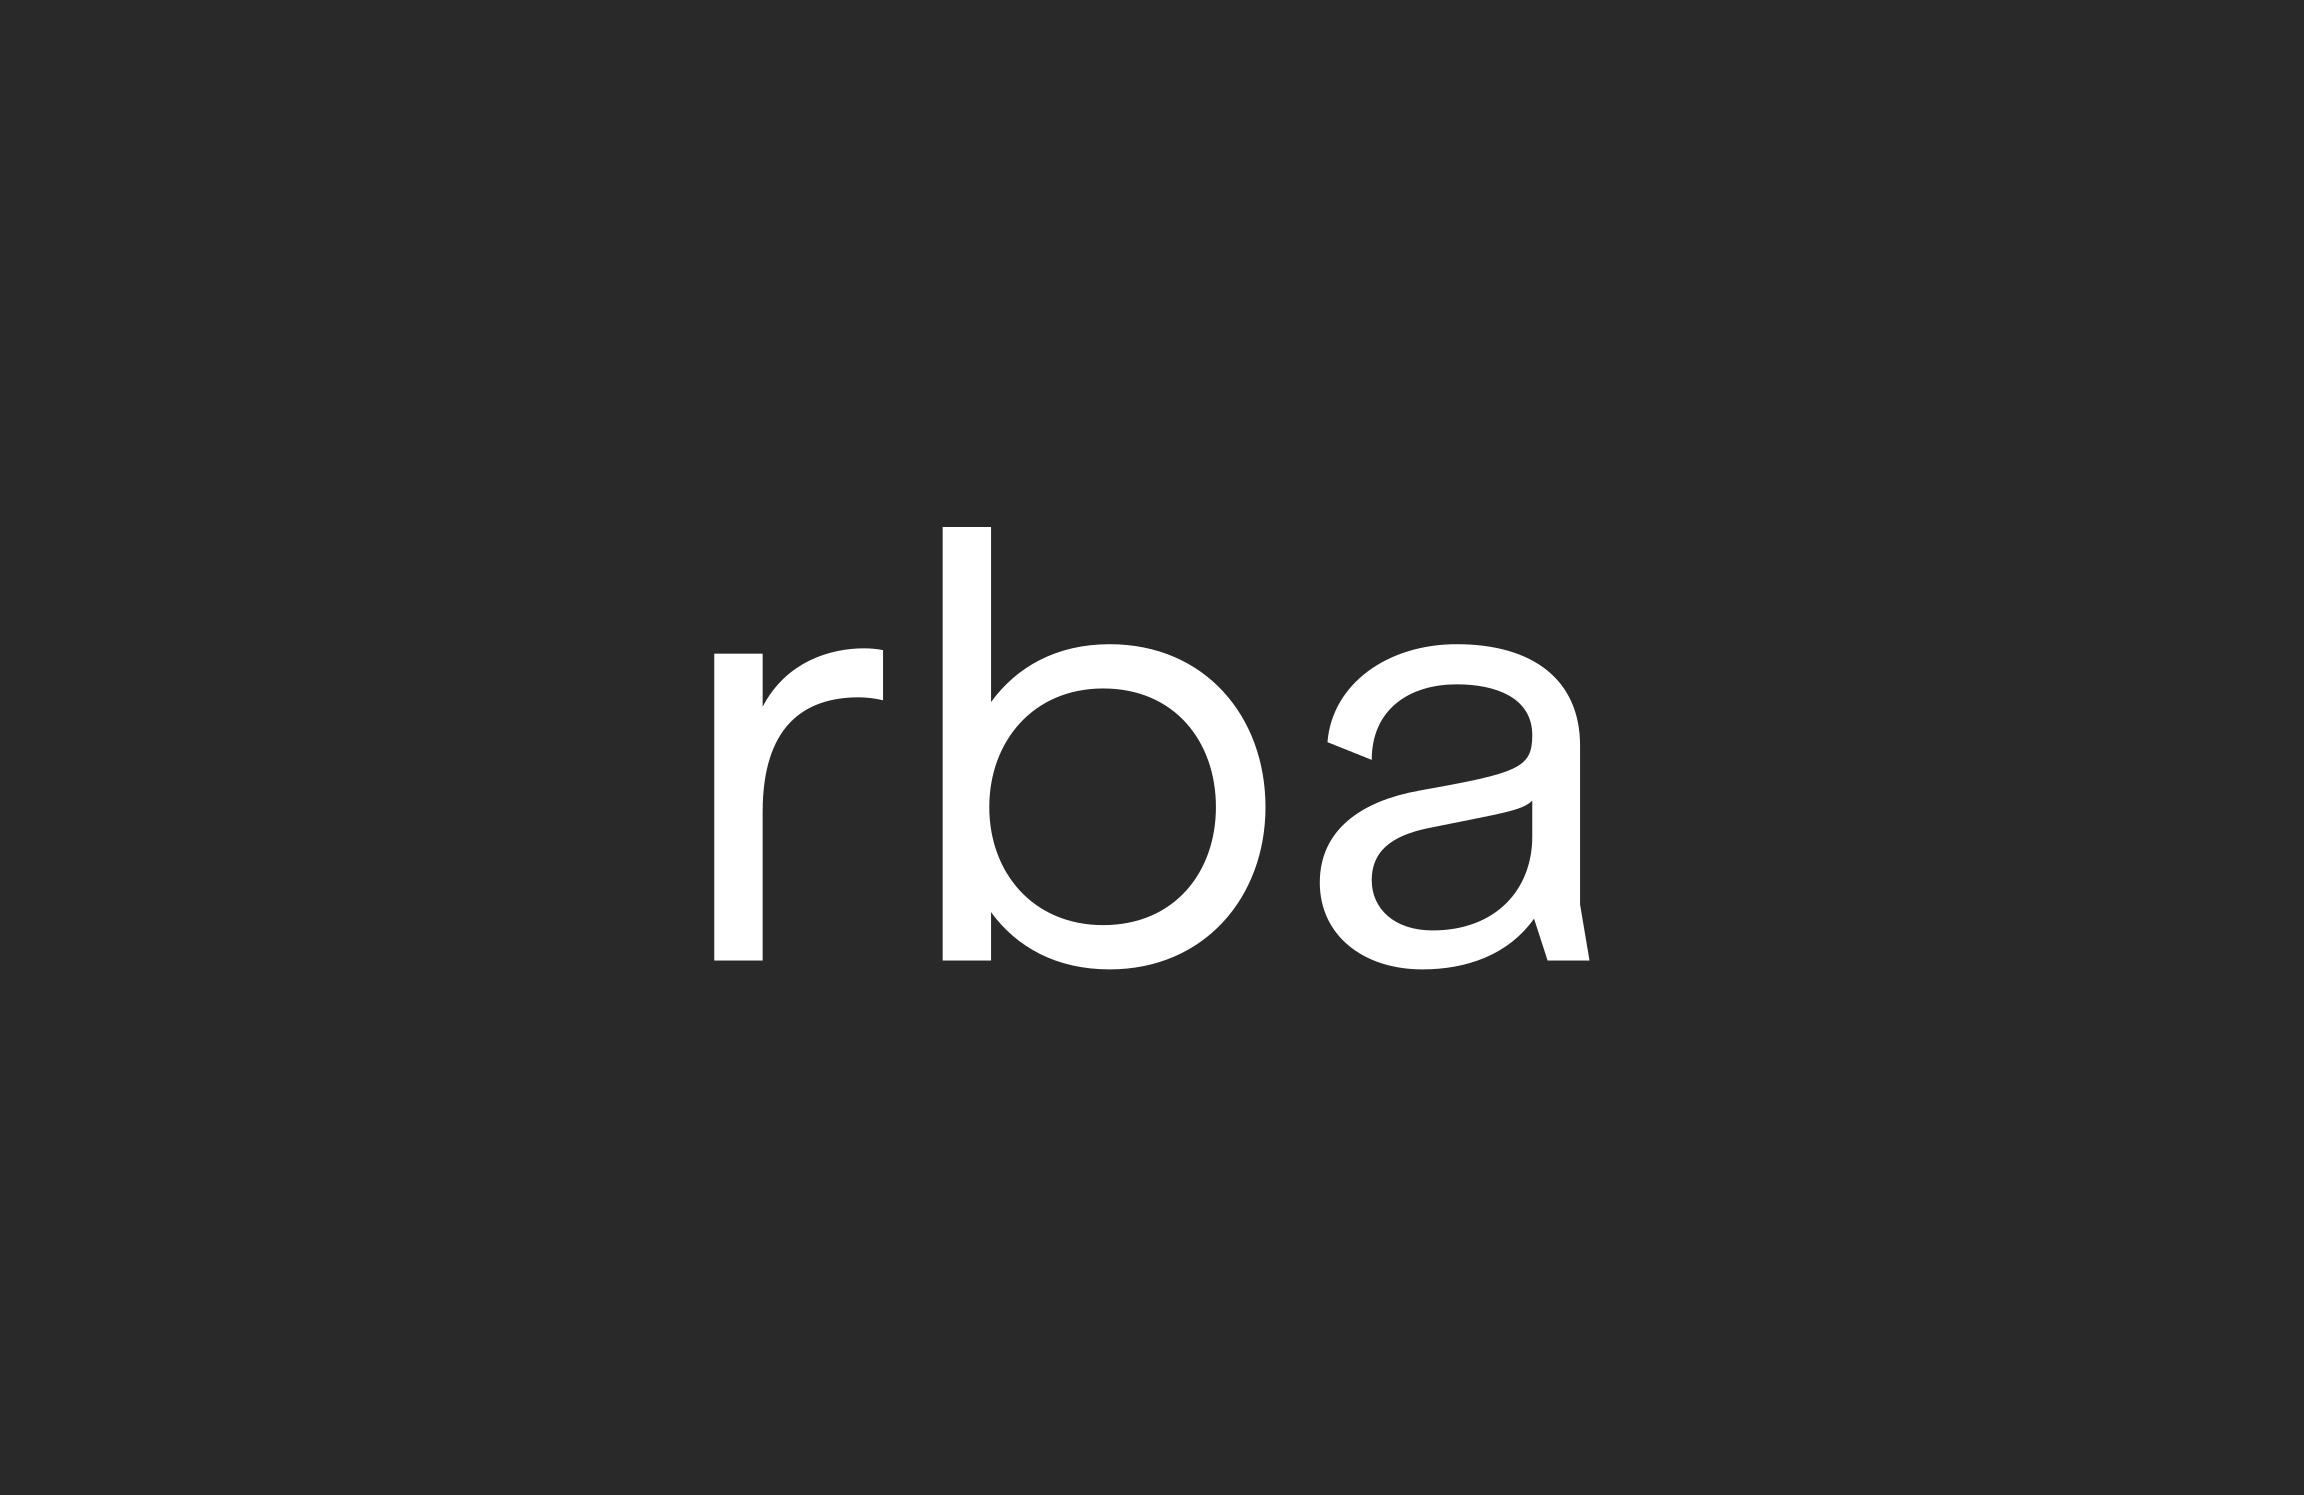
import math
import cairo

surface = cairo.ImageSurface(cairo.FORMAT_RGB24, 2304, 1495)
cr = cairo.Context(surface)
options = cairo.FontOptions()
options.set_hint_metrics(cairo.HINT_METRICS_OFF)
options.set_hint_style(cairo.HINT_STYLE_NONE)
cr.set_font_options(options)
cr.set_miter_limit(4)


def rgb(code):
    cr.set_source_rgb(*(v / 255 for v in bytes.fromhex(code[-6:])))


def image(path, x, y, w, h):
    cr.save()
    cr.set_source_surface(cairo.ImageSurface.create_from_png(path), x, y)
    cr.rectangle(x, y, w, h)
    cr.fill()
    cr.restore()


rgb("#292929")
cr.paint()
image("img/1.png", 714, 527, 876, 443)
surface.write_to_png("page.png")
